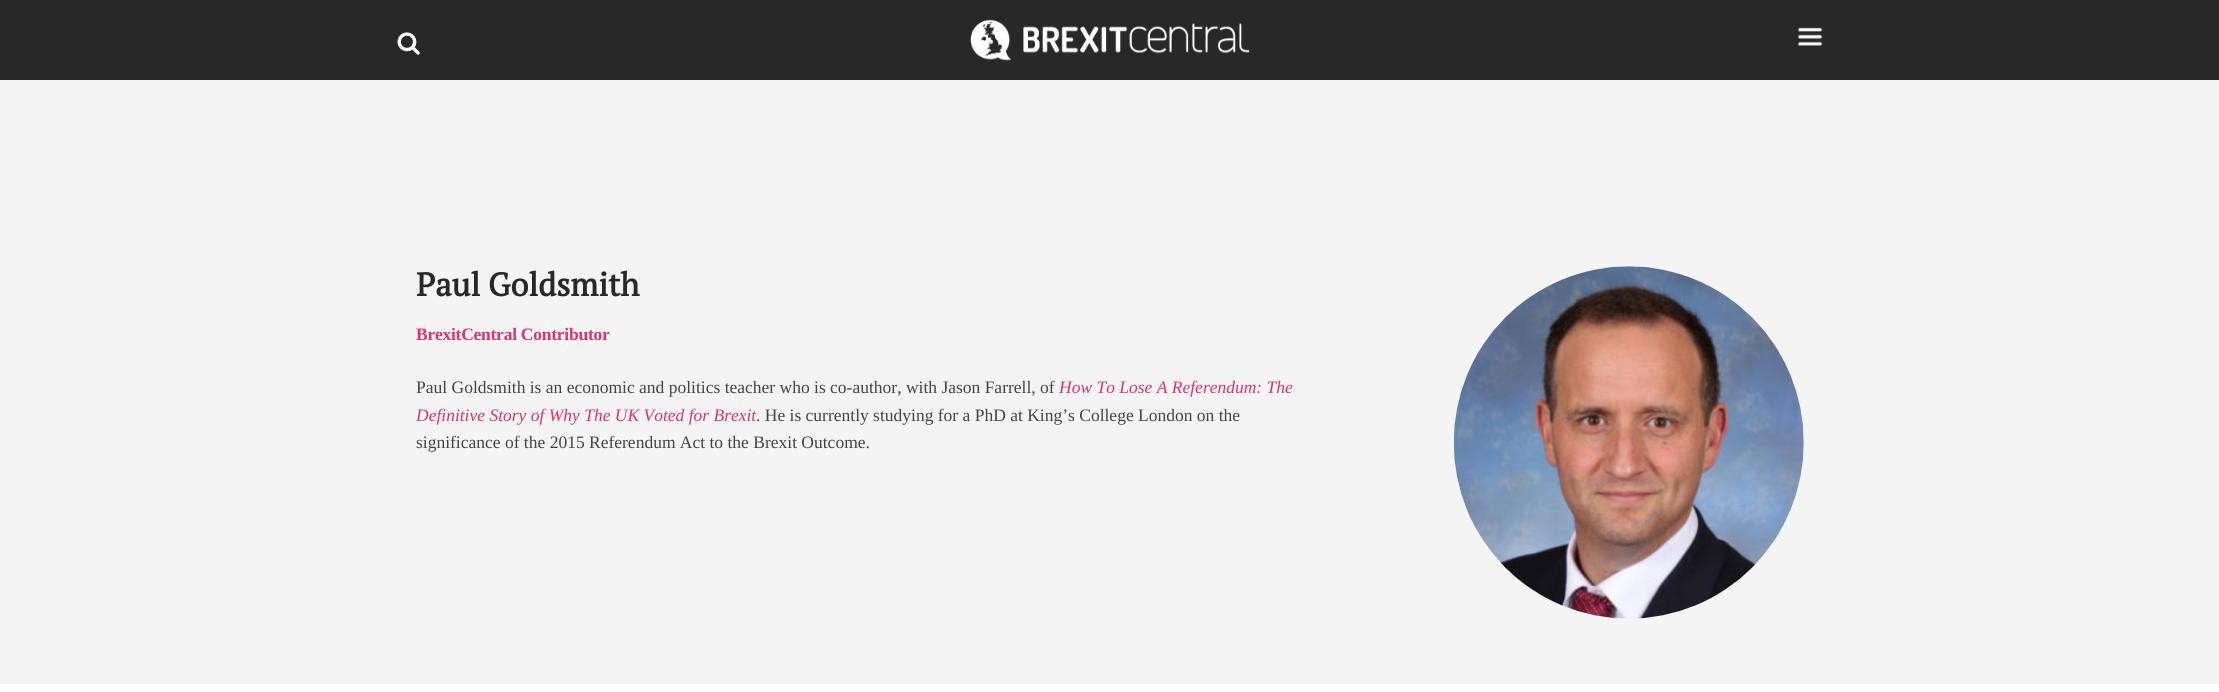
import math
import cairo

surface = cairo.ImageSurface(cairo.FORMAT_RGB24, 2219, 692)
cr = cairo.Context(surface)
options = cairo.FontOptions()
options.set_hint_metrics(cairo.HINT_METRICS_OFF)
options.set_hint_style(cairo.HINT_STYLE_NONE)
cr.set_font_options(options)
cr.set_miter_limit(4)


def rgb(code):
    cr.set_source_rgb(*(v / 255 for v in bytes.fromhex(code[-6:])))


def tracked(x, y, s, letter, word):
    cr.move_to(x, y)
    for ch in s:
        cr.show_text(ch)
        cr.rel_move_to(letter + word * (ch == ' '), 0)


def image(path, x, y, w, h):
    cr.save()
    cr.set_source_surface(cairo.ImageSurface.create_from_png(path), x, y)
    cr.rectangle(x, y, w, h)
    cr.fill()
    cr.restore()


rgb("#ffffff")
cr.paint()
rgb("#282828")
cr.rectangle(0, 0, 2219, 80)
cr.fill()
image("img/1.png", 397, 32, 23, 23)
image("img/2.png", 970, 19, 280, 42)
image("img/3.png", 1798, 27, 25, 19)
rgb("#f4f4f4")
cr.rectangle(0, 80, 2219, 604)
cr.fill()
image("img/4.png", 1453, 266, 351, 353)
cr.select_font_face("PT Serif", cairo.FONT_SLANT_NORMAL, cairo.FONT_WEIGHT_BOLD)
cr.set_font_size(32.5)
rgb("#282828")
cr.move_to(416, 296)
cr.show_text("Paul Goldsmith")
cr.select_font_face("Liberation Serif", cairo.FONT_SLANT_NORMAL, cairo.FONT_WEIGHT_BOLD)
cr.set_font_size(17.5)
rgb("#e1346e")
tracked(416, 340, "BrexitCentral Contributor", -0.25, 0)
cr.select_font_face("Liberation Serif")
rgb("#444444")
cr.move_to(416, 393)
cr.show_text("Paul Goldsmith is an economic and politics teacher who is co-author, with Jason Farrell, of")
cr.select_font_face("Liberation Serif", cairo.FONT_SLANT_ITALIC)
rgb("#e1346e")
cr.move_to(1059, 393)
cr.show_text("How To Lose A Referendum: The")
cr.move_to(416, 421)
cr.show_text("Definitive Story of Why The UK Voted for Brexit")
cr.select_font_face("Liberation Serif")
rgb("#444444")
cr.move_to(756, 421)
cr.show_text(". He is currently studying for a PhD at King’s College London on the")
cr.move_to(416, 448)
cr.show_text("significance of the 2015 Referendum Act to the Brexit Outcome.")
surface.write_to_png("page.png")
